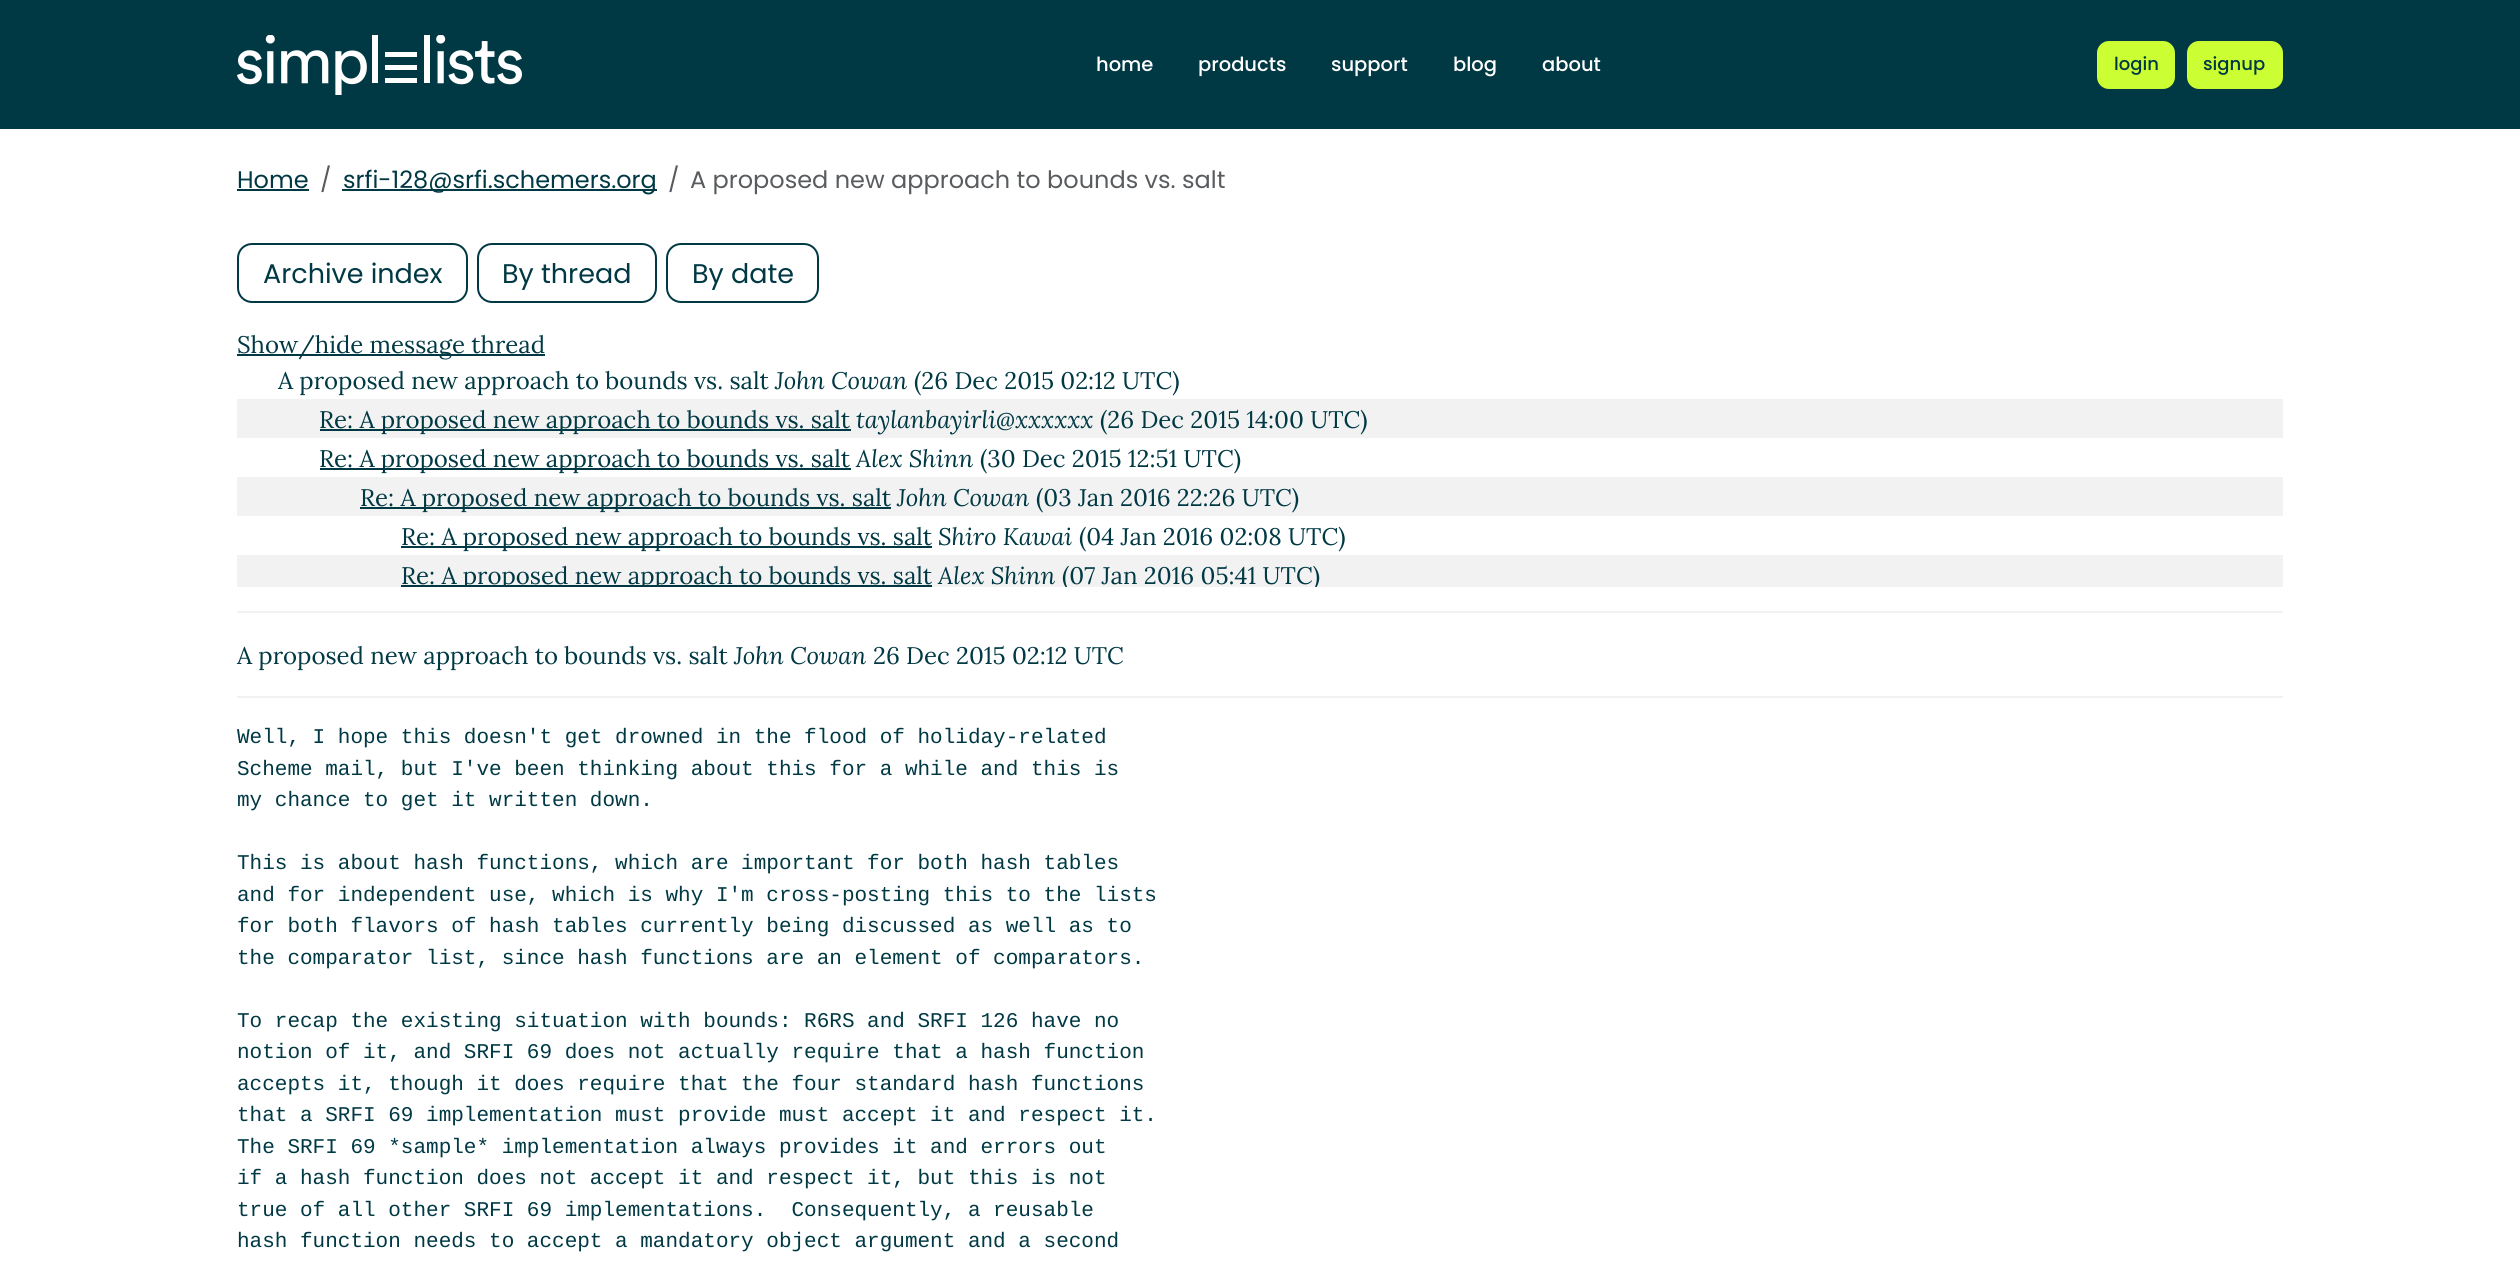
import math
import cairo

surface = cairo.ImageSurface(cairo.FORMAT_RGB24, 2520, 1270)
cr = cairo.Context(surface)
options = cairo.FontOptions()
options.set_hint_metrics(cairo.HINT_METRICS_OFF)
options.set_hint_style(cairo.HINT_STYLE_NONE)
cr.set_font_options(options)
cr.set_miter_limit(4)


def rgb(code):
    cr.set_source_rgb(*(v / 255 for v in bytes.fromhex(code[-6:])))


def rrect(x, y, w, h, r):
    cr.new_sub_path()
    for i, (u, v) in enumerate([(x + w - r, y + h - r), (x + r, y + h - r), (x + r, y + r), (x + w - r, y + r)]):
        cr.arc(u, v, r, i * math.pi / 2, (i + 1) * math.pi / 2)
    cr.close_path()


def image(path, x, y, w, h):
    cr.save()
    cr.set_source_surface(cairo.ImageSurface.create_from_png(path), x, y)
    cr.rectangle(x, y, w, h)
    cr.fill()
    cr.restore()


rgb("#ffffff")
cr.paint()
rgb("#003944")
cr.rectangle(0, 0, 2520, 129)
cr.fill()
image("img/1.png", 237, 35, 285, 60)
rgb("#ccff33")
rrect(2098, 42, 76, 46, 11)
cr.fill_preserve()
cr.stroke()
rrect(2188, 42, 94, 46, 11)
cr.fill_preserve()
cr.stroke()
rgb("#003944")
cr.rectangle(237, 189, 72, 2)
cr.fill()
cr.rectangle(342, 189, 315, 2)
cr.fill()
rrect(238, 244, 229, 58, 14)
cr.stroke()
rrect(478, 244, 178, 58, 14)
cr.stroke()
rrect(667, 244, 151, 58, 14)
cr.stroke()
for x, y, w, h, color in [
    (237, 354, 308, 2, "#003944"),
    (237, 399, 2046, 39, "#f2f2f2"),
    (320, 429, 531, 2, "#003944"),
    (320, 468, 531, 2, "#003944"),
    (237, 477, 2046, 39, "#f2f2f2"),
    (360, 507, 531, 2, "#003944"),
    (401, 546, 531, 2, "#003944"),
    (237, 555, 2046, 32, "#f2f2f2"),
    (401, 585, 531, 2, "#003944"),
    (237, 611, 2046, 2, "#f2f2f2"),
    (237, 696, 2046, 2, "#f2f2f2"),
]:
    rgb(color)
    cr.rectangle(x, y, w, h)
    cr.fill()
cr.select_font_face("Poppins Medium")
cr.set_font_size(19.5)
rgb("#ffffff")
for x, y, s in [
    (1096, 71, "home"),
    (1198, 71, "products"),
    (1331, 71, "support"),
    (1453, 71, "blog"),
    (1542, 71, "about"),
]:
    cr.move_to(x, y)
    cr.show_text(s)
cr.set_font_size(18)
rgb("#003944")
cr.move_to(2114, 70)
cr.show_text("login")
cr.move_to(2203, 70)
cr.show_text("signup")
cr.select_font_face("Poppins")
cr.set_font_size(24)
cr.move_to(237, 188)
cr.show_text("Home")
rgb("#595c5f")
cr.move_to(320, 188)
cr.show_text("/")
rgb("#003944")
cr.move_to(343, 188)
cr.show_text("srfi-128@srfi.schemers.org")
rgb("#595c5f")
cr.move_to(668, 188)
cr.show_text("/")
cr.move_to(690, 188)
cr.show_text("A proposed new approach to bounds vs. salt")
cr.set_font_size(27)
rgb("#003944")
for x, y, s in [
    (263, 283, "Archive index"),
    (502, 283, "By thread"),
    (692, 283, "By date"),
]:
    cr.move_to(x, y)
    cr.show_text(s)
cr.select_font_face("Lora")
cr.set_font_size(24)
cr.move_to(237, 353)
cr.show_text("Show/hide message thread")
cr.move_to(278, 389)
cr.show_text("A proposed new approach to bounds vs. salt")
cr.select_font_face("Lora", cairo.FONT_SLANT_ITALIC)
cr.move_to(775, 389)
cr.show_text("John Cowan")
cr.select_font_face("Lora")
cr.move_to(914, 389)
cr.show_text("(26 Dec 2015 02:12 UTC)")
cr.move_to(319, 428)
cr.show_text("Re: A proposed new approach to bounds vs. salt")
cr.select_font_face("Lora", cairo.FONT_SLANT_ITALIC)
cr.move_to(856, 428)
cr.show_text("taylanbayirli@xxxxxx")
cr.select_font_face("Lora")
cr.move_to(1100, 428)
cr.show_text("(26 Dec 2015 14:00 UTC)")
cr.move_to(319, 467)
cr.show_text("Re: A proposed new approach to bounds vs. salt")
cr.select_font_face("Lora", cairo.FONT_SLANT_ITALIC)
cr.move_to(856, 467)
cr.show_text("Alex Shinn")
cr.select_font_face("Lora")
cr.move_to(980, 467)
cr.show_text("(30 Dec 2015 12:51 UTC)")
cr.move_to(360, 506)
cr.show_text("Re: A proposed new approach to bounds vs. salt")
cr.select_font_face("Lora", cairo.FONT_SLANT_ITALIC)
cr.move_to(897, 506)
cr.show_text("John Cowan")
cr.select_font_face("Lora")
cr.move_to(1036, 506)
cr.show_text("(03 Jan 2016 22:26 UTC)")
cr.move_to(401, 545)
cr.show_text("Re: A proposed new approach to bounds vs. salt")
cr.select_font_face("Lora", cairo.FONT_SLANT_ITALIC)
cr.move_to(938, 545)
cr.show_text("Shiro Kawai")
cr.select_font_face("Lora")
cr.move_to(1079, 545)
cr.show_text("(04 Jan 2016 02:08 UTC)")
cr.save()
cr.rectangle(401, 557, 1881, 30)
cr.clip()
cr.move_to(401, 584)
cr.show_text("Re: A proposed new approach to bounds vs. salt")
cr.restore()
cr.select_font_face("Lora", cairo.FONT_SLANT_ITALIC)
cr.move_to(938, 584)
cr.show_text("Alex Shinn")
cr.save()
cr.rectangle(401, 557, 1881, 30)
cr.clip()
cr.select_font_face("Lora")
cr.move_to(1062, 584)
cr.show_text("(07 Jan 2016 05:41 UTC)")
cr.restore()
cr.select_font_face("Lora")
cr.move_to(237, 664)
cr.show_text("A proposed new approach to bounds vs. salt")
cr.select_font_face("Lora", cairo.FONT_SLANT_ITALIC)
cr.move_to(734, 664)
cr.show_text("John Cowan")
cr.select_font_face("Lora")
cr.move_to(873, 664)
cr.show_text("26 Dec 2015 02:12 UTC")
cr.select_font_face("Liberation Mono")
cr.set_font_size(21)
for x, y, s in [
    (237, 743, "Well, I hope this doesn't get drowned in the flood of holiday-related"),
    (237, 775, "Scheme mail, but I've been thinking about this for a while and this is"),
    (237, 806, "my chance to get it written down."),
    (237, 869, "This is about hash functions, which are important for both hash tables"),
    (237, 901, "and for independent use, which is why I'm cross-posting this to the lists"),
    (237, 932, "for both flavors of hash tables currently being discussed as well as to"),
    (237, 964, "the comparator list, since hash functions are an element of comparators."),
    (237, 1027, "To recap the existing situation with bounds: R6RS and SRFI 126 have no"),
    (237, 1058, "notion of it, and SRFI 69 does not actually require that a hash function"),
    (237, 1090, "accepts it, though it does require that the four standard hash functions"),
    (237, 1121, "that a SRFI 69 implementation must provide must accept it and respect it."),
    (237, 1153, "The SRFI 69 *sample* implementation always provides it and errors out"),
    (237, 1184, "if a hash function does not accept it and respect it, but this is not"),
    (237, 1216, "true of all other SRFI 69 implementations.  Consequently, a reusable"),
    (237, 1247, "hash function needs to accept a mandatory object argument and a second"),
]:
    cr.move_to(x, y)
    cr.show_text(s)
surface.write_to_png("page.png")
